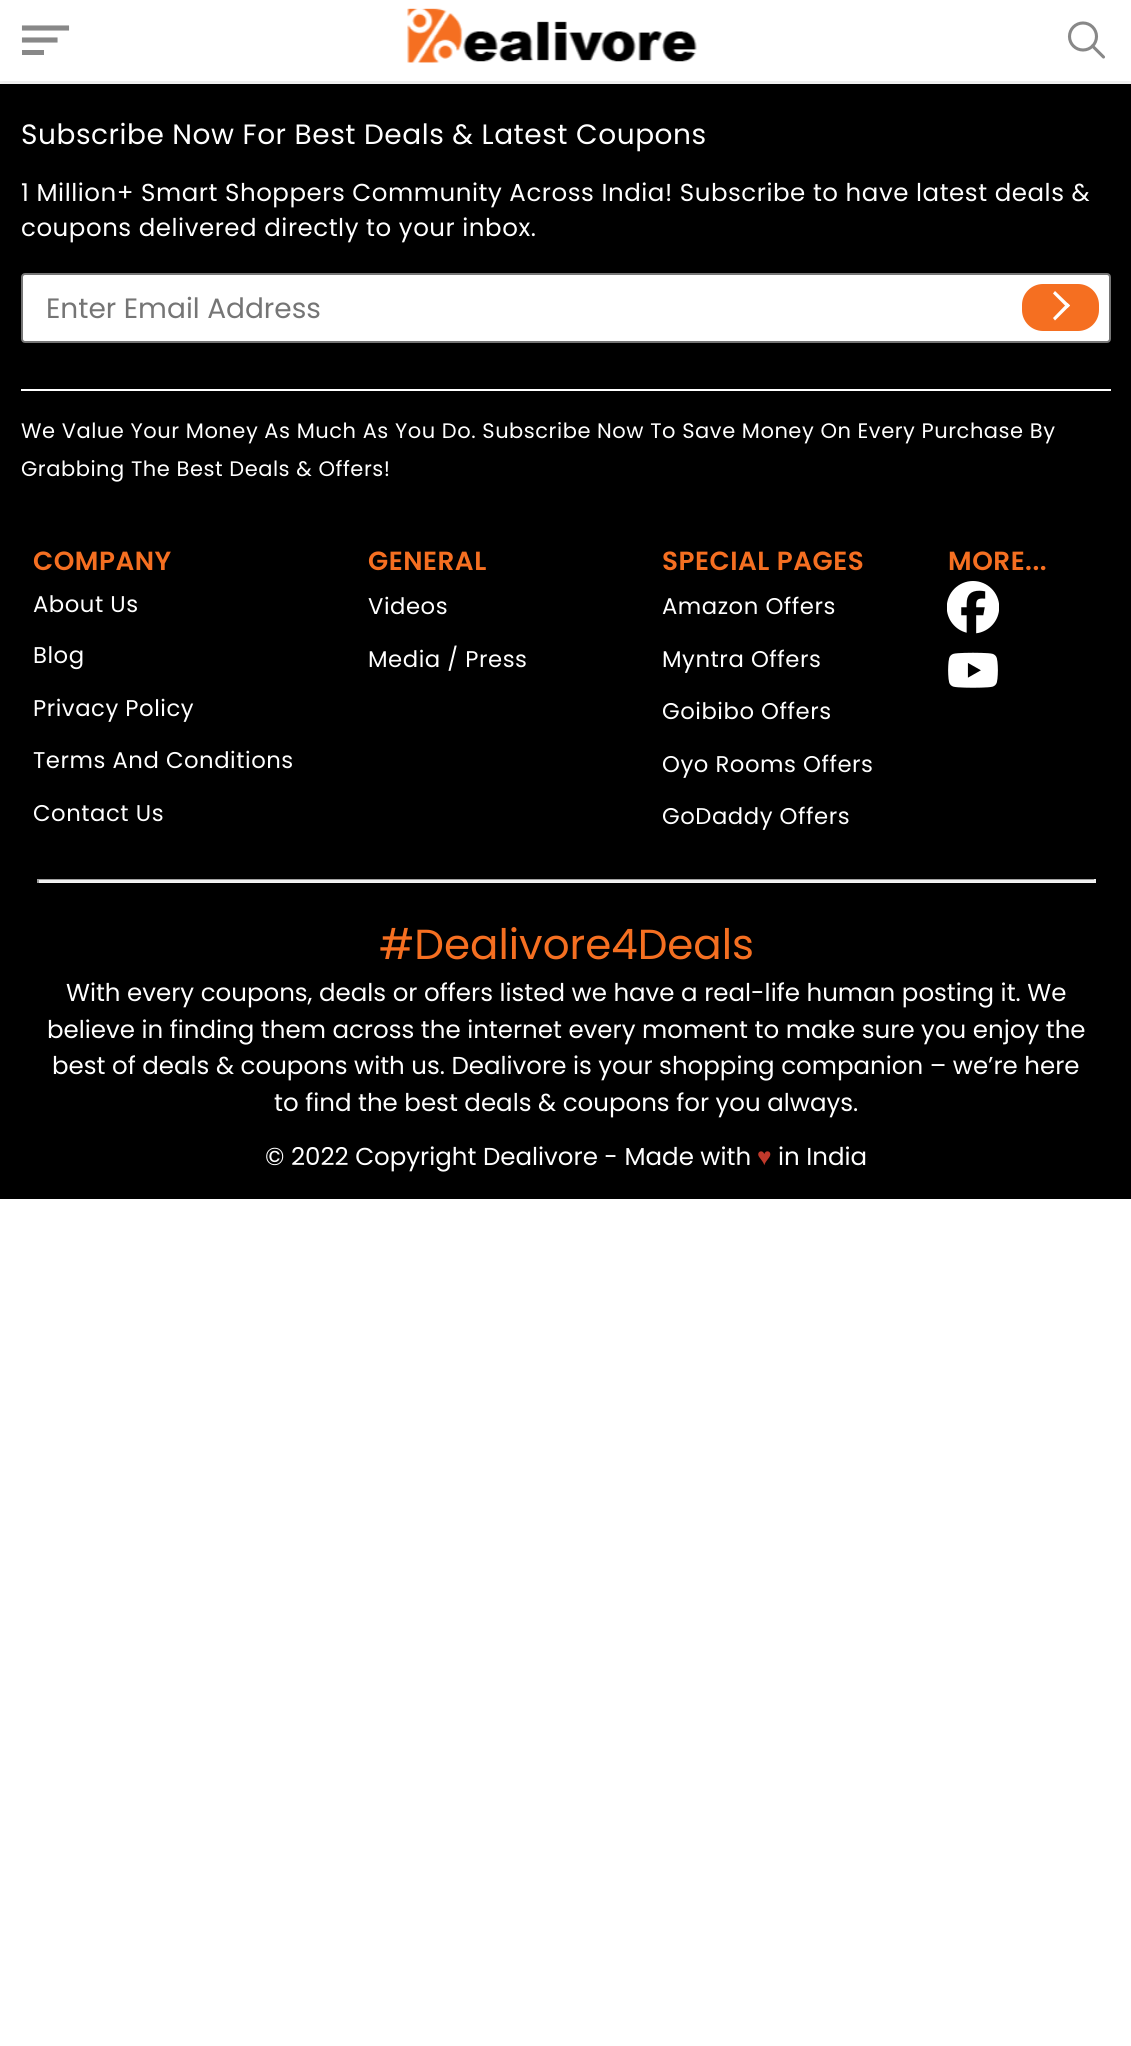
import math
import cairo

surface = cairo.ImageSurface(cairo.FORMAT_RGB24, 1131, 2046)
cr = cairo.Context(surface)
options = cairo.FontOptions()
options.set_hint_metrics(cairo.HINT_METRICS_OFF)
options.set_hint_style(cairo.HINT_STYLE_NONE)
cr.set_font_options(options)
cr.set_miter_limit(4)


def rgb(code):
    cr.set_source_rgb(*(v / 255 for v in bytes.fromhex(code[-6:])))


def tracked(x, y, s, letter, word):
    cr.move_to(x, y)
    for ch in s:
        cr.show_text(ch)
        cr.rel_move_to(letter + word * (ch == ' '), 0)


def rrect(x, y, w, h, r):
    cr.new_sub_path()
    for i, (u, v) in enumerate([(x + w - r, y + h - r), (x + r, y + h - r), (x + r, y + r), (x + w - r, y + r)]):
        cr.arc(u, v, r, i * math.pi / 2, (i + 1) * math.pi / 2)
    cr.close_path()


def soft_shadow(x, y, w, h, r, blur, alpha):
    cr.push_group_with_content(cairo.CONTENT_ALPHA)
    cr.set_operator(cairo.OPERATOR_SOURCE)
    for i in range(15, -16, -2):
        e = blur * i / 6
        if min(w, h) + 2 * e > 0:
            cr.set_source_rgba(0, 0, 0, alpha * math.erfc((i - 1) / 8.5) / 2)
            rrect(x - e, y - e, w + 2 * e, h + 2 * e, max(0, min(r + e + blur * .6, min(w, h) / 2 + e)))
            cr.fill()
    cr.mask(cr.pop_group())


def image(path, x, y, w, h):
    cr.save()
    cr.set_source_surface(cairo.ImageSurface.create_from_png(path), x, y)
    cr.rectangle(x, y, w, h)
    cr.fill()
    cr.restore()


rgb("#ffffff")
cr.paint()
rgb("#000000")
cr.rectangle(0, 84, 1131, 1115)
cr.fill()
rgb("#000000")
soft_shadow(0, 4, 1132, 80, 0, 9, 0.11)
rgb("#ffffff")
cr.rectangle(0, 0, 1131, 81)
cr.fill()
cr.new_path()
cr.move_to(24.5, 28)
cr.line_to(66.5, 28)
cr.move_to(24.5, 40)
cr.line_to(55, 40)
rgb("#888888")
cr.set_line_width(5.1)
cr.set_line_cap(cairo.LINE_CAP_SQUARE)
cr.stroke()
cr.rectangle(22, 50, 22, 5)
cr.fill()
image("img/1.png", 407, 8, 290, 55)
cr.arc(1083, 36.5, 13.5, 0, 2 * math.pi)
cr.set_line_width(3.1)
cr.set_line_cap(cairo.LINE_CAP_BUTT)
cr.stroke()
cr.new_path()
cr.move_to(1092.5, 46)
cr.line_to(1103.5, 57)
cr.set_line_cap(cairo.LINE_CAP_ROUND)
cr.stroke()
rgb("#ffffff")
rrect(22, 274, 1088, 68, 3)
cr.fill_preserve()
rgb("#767676")
cr.set_line_width(2)
cr.set_line_cap(cairo.LINE_CAP_BUTT)
cr.stroke()
rgb("#f56f21")
rrect(1022, 284, 77, 47, 21)
cr.fill()
rgb("#ffffff")
cr.new_path()
cr.move_to(1053, 293.5)
cr.line_to(1055, 291)
cr.line_to(1070, 305.5)
cr.line_to(1067.5, 308)
cr.close_path()
cr.fill()
cr.new_path()
cr.move_to(1053, 318)
cr.line_to(1067.5, 303)
cr.line_to(1070, 305.5)
cr.line_to(1055, 320.5)
cr.close_path()
cr.fill()
cr.rectangle(21, 389, 1090, 2)
cr.fill()
image("img/2.png", 947, 581, 52, 53)
image("img/3.png", 948, 652, 50, 36)
for x, y, w, h, color in [
    (37, 882, 1059, 1, "#f5f5f5"),
    (37, 879, 1059, 1, "#9f9f9f"),
    (1094, 879, 2, 4, "#eeeeee"),
    (37, 880, 1059, 2, "#eeeeee"),
    (37, 879, 2, 4, "#9f9f9f"),
]:
    rgb(color)
    cr.rectangle(x, y, w, h)
    cr.fill()
cr.select_font_face("Poppins")
cr.set_font_size(28)
rgb("#ffffff")
tracked(21, 144, "Subscribe Now For Best Deals & Latest Coupons", 0.53, 0)
cr.set_font_size(24.5)
tracked(21, 201, "1 Million+ Smart Shoppers Community Across India! Subscribe to have latest deals &", 0.53, 0)
tracked(21, 236, "coupons delivered directly to your inbox.", 0.53, 0)
cr.set_font_size(28)
rgb("#757575")
cr.move_to(46, 318)
cr.show_text("Enter Email Address")
cr.set_font_size(21)
rgb("#ffffff")
tracked(21, 438, "We Value Your Money As Much As You Do. Subscribe Now To Save Money On Every Purchase By", 0.53, 0)
tracked(21, 476, "Grabbing The Best Deals & Offers!", 0.53, 0)
cr.select_font_face("Poppins SemiBold")
cr.set_font_size(26.25)
rgb("#f56f21")
tracked(33, 570, "COMPANY", 0.53, 0)
cr.select_font_face("Poppins")
cr.set_font_size(22.75)
rgb("#ffffff")
for x, y, s in [
    (33, 612, "About Us"),
    (33, 663, "Blog"),
    (33, 716, "Privacy Policy"),
    (33, 768, "Terms And Conditions"),
    (33, 821, "Contact Us"),
]:
    tracked(x, y, s, 0.53, 0)
cr.select_font_face("Poppins SemiBold")
cr.set_font_size(26.25)
rgb("#f56f21")
tracked(368, 570, "GENERAL", 0.53, 0)
cr.select_font_face("Poppins")
cr.set_font_size(22.75)
rgb("#ffffff")
tracked(368, 614, "Videos", 0.53, 0)
tracked(368, 667, "Media / Press", 0.53, 0)
cr.select_font_face("Poppins SemiBold")
cr.set_font_size(26.25)
rgb("#f56f21")
tracked(662, 570, "SPECIAL PAGES", 0.53, 0)
cr.select_font_face("Poppins")
cr.set_font_size(22.75)
rgb("#ffffff")
for x, y, s in [
    (662, 614, "Amazon Offers"),
    (662, 667, "Myntra Offers"),
    (662, 719, "Goibibo Offers"),
    (662, 772, "Oyo Rooms Offers"),
    (662, 824, "GoDaddy Offers"),
]:
    tracked(x, y, s, 0.53, 0)
cr.select_font_face("Poppins SemiBold")
cr.set_font_size(26.25)
rgb("#f56f21")
tracked(948, 570, "MORE...", 0.53, 0)
cr.select_font_face("Poppins")
cr.set_font_size(42)
cr.move_to(379, 959)
cr.show_text("#Dealivore4Deals")
cr.set_font_size(24.5)
rgb("#ffffff")
for x, y, s in [
    (66, 1001, "With every coupons, deals or offers listed we have a real-life human posting it. We"),
    (47, 1038, "believe in finding them across the internet every moment to make sure you enjoy the"),
    (52, 1074, "best of deals & coupons with us. Dealivore is your shopping companion – we’re here"),
    (274, 1111, "to find the best deals & coupons for you always."),
    (265, 1165, "© 2022 Copyright Dealivore - Made with"),
]:
    cr.move_to(x, y)
    cr.show_text(s)
cr.select_font_face("Liberation Sans")
rgb("#c0392b")
cr.move_to(757, 1165)
cr.show_text("♥")
cr.select_font_face("Poppins")
rgb("#ffffff")
cr.move_to(778, 1165)
cr.show_text("in India")
surface.write_to_png("page.png")
